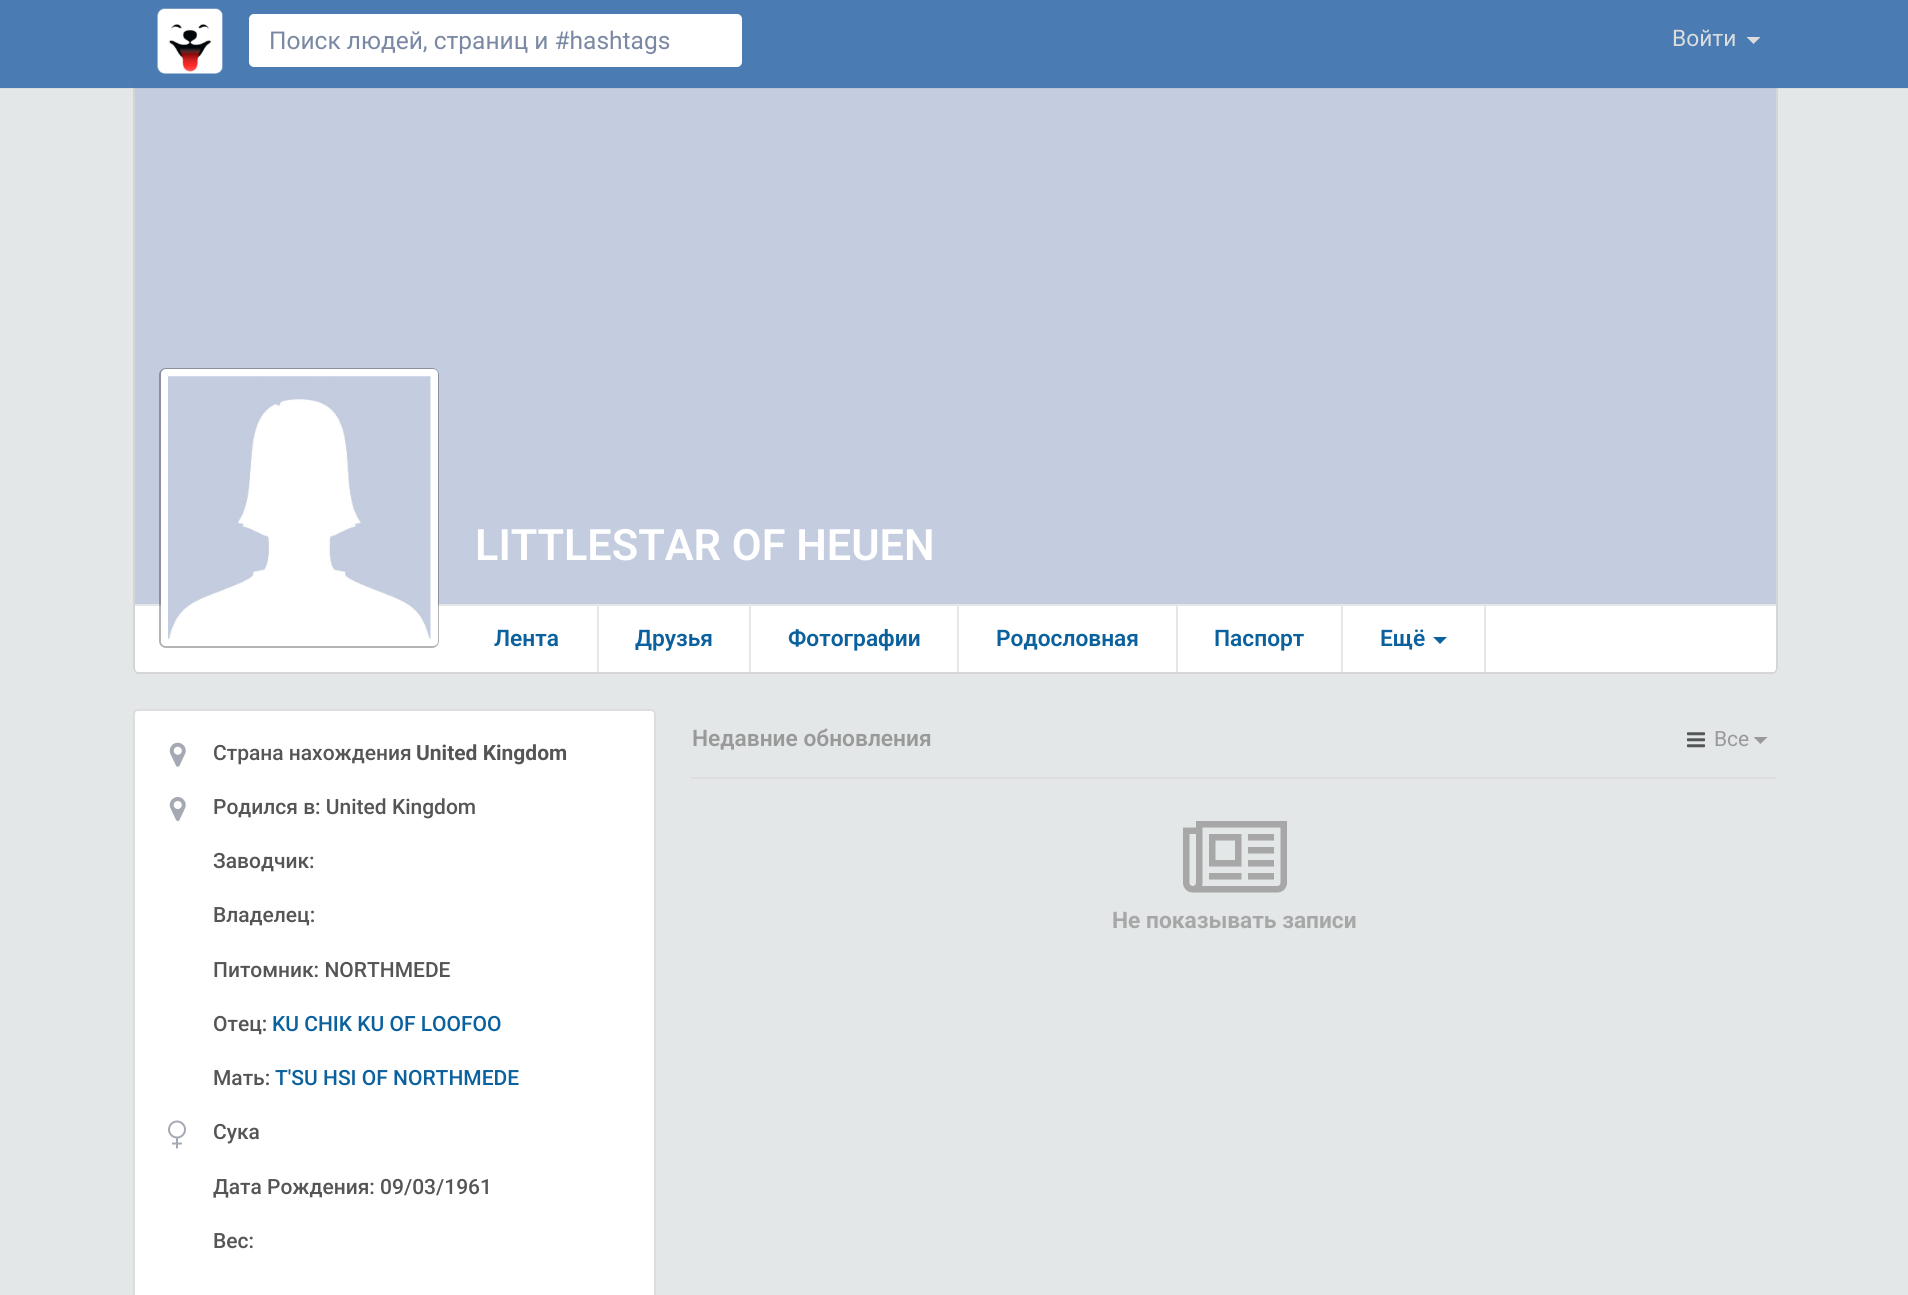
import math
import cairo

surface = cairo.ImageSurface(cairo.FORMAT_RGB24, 1908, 1295)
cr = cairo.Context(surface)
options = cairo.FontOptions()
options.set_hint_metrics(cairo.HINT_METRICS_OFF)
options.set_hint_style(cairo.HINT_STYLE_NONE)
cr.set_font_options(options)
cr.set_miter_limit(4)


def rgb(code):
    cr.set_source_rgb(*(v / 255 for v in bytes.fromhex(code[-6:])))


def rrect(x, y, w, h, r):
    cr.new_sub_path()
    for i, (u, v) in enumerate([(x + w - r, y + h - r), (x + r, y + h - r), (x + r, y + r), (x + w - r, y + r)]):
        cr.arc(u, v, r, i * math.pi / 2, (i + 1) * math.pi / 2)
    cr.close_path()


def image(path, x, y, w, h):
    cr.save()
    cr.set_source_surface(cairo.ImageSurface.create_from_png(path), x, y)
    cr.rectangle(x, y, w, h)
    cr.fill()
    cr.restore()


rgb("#e3e7e8")
cr.paint()
rgb("#ffffff")
cr.new_path()
cr.move_to(133, 81)
cr.line_to(1778, 81)
cr.line_to(1778, 669)
cr.curve_to(1778, 672, 1776, 674, 1773, 674)
cr.line_to(138, 674)
cr.curve_to(135, 674, 133, 672, 133, 669)
cr.close_path()
cr.fill()
rgb("#d4d5d4")
cr.set_fill_rule(cairo.FILL_RULE_EVEN_ODD)
cr.new_path()
cr.move_to(133, 80)
cr.line_to(1778, 80)
cr.line_to(1778, 668)
cr.curve_to(1778, 671, 1776, 674, 1773, 674)
cr.line_to(138, 674)
cr.curve_to(135, 674, 133, 671, 133, 668)
cr.close_path()
cr.move_to(135, 80)
cr.line_to(1776, 80)
cr.line_to(1776, 668)
cr.curve_to(1776, 670, 1775, 672, 1773, 672)
cr.line_to(138, 672)
cr.curve_to(136, 672, 135, 670, 135, 668)
cr.close_path()
cr.fill()
rgb("#c4ccdf")
cr.rectangle(135, 81, 1641, 523)
cr.fill()
cr.set_source_rgba(0, 0, 0, 0.04)
cr.rectangle(0, 88, 1908, 1)
cr.fill()
cr.set_source_rgba(0.282, 0.471, 0.69, 0.98)
cr.rectangle(0, 0, 1908, 88)
cr.fill()
image("img/1.png", 157, 8, 66, 66)
rgb("#ffffff")
rrect(249, 14, 493, 53, 5)
cr.fill()
rgb("#dddddd")
cr.set_fill_rule(cairo.FILL_RULE_WINDING)
cr.new_path()
cr.move_to(1746.5, 37)
cr.line_to(1760.5, 37)
cr.line_to(1753.5, 44)
cr.close_path()
cr.fill()
rgb("#e5e6e7")
cr.rectangle(135, 604, 1641, 2)
cr.fill()
rrect(160, 369, 278, 278, 6)
cr.set_source_rgba(0, 0, 0, 0.3)
cr.stroke()
rgb("#ffffff")
rrect(161, 369, 277, 277, 5)
cr.fill()
image("img/2.png", 168, 376, 263, 263)
for x, y, w, h, color in [
    (597, 606, 2, 66, "#e5e6e7"),
    (749, 606, 2, 66, "#e5e6e7"),
    (957, 606, 2, 66, "#e5e6e7"),
    (1176, 606, 2, 66, "#e5e6e7"),
    (1341, 606, 2, 66, "#e5e6e7"),
    (1484, 606, 2, 66, "#e5e6e7"),
]:
    rgb(color)
    cr.rectangle(x, y, w, h)
    cr.fill()
rgb("#0b619e")
cr.new_path()
cr.move_to(1433, 637)
cr.line_to(1447, 637)
cr.line_to(1440, 644)
cr.close_path()
cr.fill()
rgb("#ffffff")
rrect(134, 710, 521, 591, 4)
cr.fill_preserve()
rgb("#dddddd")
cr.stroke()
image("img/3.png", 169, 742, 17, 25)
image("img/4.png", 169, 797, 17, 24)
image("img/5.png", 168, 1120, 18, 29)
cr.rectangle(691, 777, 1085, 2)
cr.fill()
image("img/6.png", 1687, 732, 18, 16)
rgb("#999999")
cr.new_path()
cr.move_to(1753.5, 737)
cr.line_to(1767.5, 737)
cr.line_to(1760.5, 744)
cr.close_path()
cr.fill()
image("img/7.png", 1183, 821, 104, 72)
cr.select_font_face("Roboto")
cr.set_font_size(24.5)
rgb("#7a88a3")
cr.move_to(269, 49)
cr.show_text("Поиск людей, страниц и #hashtags")
cr.set_font_size(22.75)
rgb("#dddddd")
cr.move_to(1672, 46)
cr.show_text("Войти")
cr.select_font_face("Roboto SemiBold")
cr.set_font_size(43.25)
rgb("#ffffff")
cr.move_to(475, 560)
cr.show_text("LITTLESTAR OF HEUEN")
cr.set_font_size(22.75)
rgb("#0b619e")
for x, y, s in [
    (494, 646, "Лента"),
    (635, 646, "Друзья"),
    (788, 646, "Фотографии"),
    (996, 646, "Родословная"),
    (1214, 646, "Паспорт"),
    (1380, 646, "Ещё"),
]:
    cr.move_to(x, y)
    cr.show_text(s)
cr.select_font_face("Roboto Medium")
cr.set_font_size(21)
rgb("#555555")
cr.move_to(213, 760)
cr.show_text("Страна нахождения")
cr.select_font_face("Roboto", cairo.FONT_SLANT_NORMAL, cairo.FONT_WEIGHT_BOLD)
cr.move_to(416, 760)
cr.show_text("United Kingdom")
cr.select_font_face("Roboto Medium")
for x, y, s in [
    (213, 814, "Родился в: United Kingdom"),
    (213, 868, "Заводчик:"),
    (213, 922, "Владелец:"),
    (213, 977, "Питомник: NORTHMEDE"),
    (213, 1031, "Отец:"),
]:
    cr.move_to(x, y)
    cr.show_text(s)
rgb("#0b619e")
cr.move_to(272, 1031)
cr.show_text("KU CHIK KU OF LOOFOO")
rgb("#555555")
cr.move_to(213, 1085)
cr.show_text("Мать:")
rgb("#0b619e")
cr.move_to(275, 1085)
cr.show_text("T'SU HSI OF NORTHMEDE")
rgb("#555555")
for x, y, s in [
    (213, 1139, "Сука"),
    (213, 1194, "Дата Рождения: 09/03/1961"),
    (213, 1248, "Вес:"),
]:
    cr.move_to(x, y)
    cr.show_text(s)
cr.select_font_face("Roboto SemiBold")
cr.set_font_size(22.75)
rgb("#999999")
cr.move_to(692, 746)
cr.show_text("Недавние обновления")
cr.select_font_face("Roboto")
cr.set_font_size(21)
cr.move_to(1714, 746)
cr.show_text("Все")
cr.select_font_face("Roboto", cairo.FONT_SLANT_NORMAL, cairo.FONT_WEIGHT_BOLD)
cr.set_font_size(22.75)
rgb("#a7a7a7")
cr.move_to(1112, 928)
cr.show_text("Не показывать записи")
surface.write_to_png("page.png")
